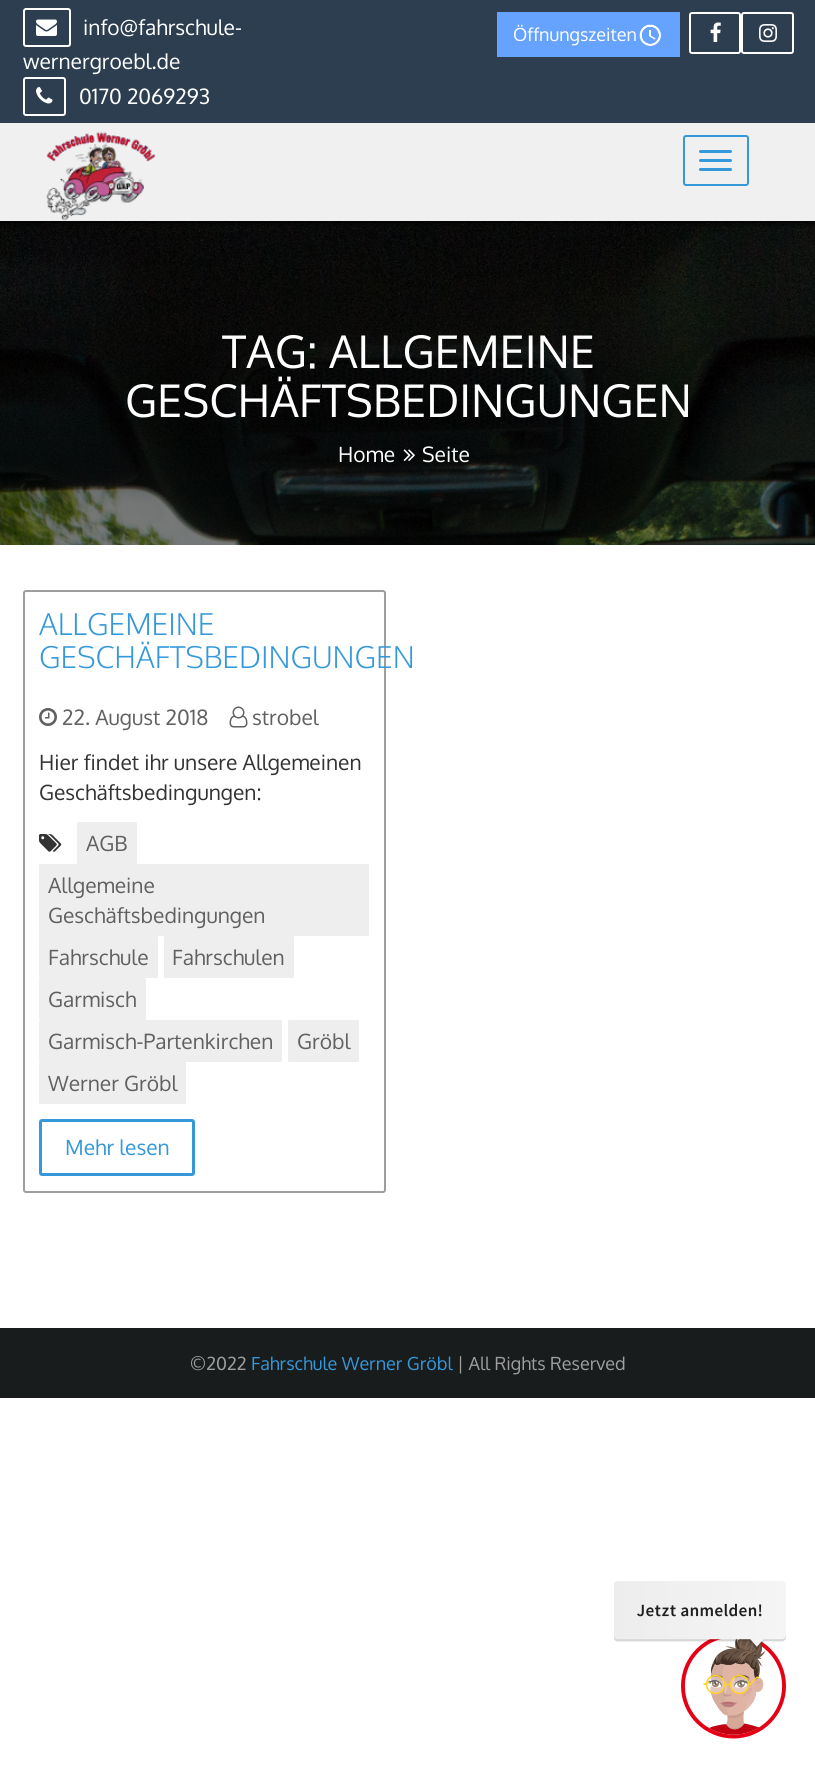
import math
import cairo

surface = cairo.ImageSurface(cairo.FORMAT_RGB24, 815, 1770)
cr = cairo.Context(surface)
options = cairo.FontOptions()
options.set_hint_metrics(cairo.HINT_METRICS_OFF)
options.set_hint_style(cairo.HINT_STYLE_NONE)
cr.set_font_options(options)
cr.set_miter_limit(4)


def rgb(code):
    cr.set_source_rgb(*(v / 255 for v in bytes.fromhex(code[-6:])))


def rrect(x, y, w, h, r):
    cr.new_sub_path()
    for i, (u, v) in enumerate([(x + w - r, y + h - r), (x + r, y + h - r), (x + r, y + r), (x + w - r, y + r)]):
        cr.arc(u, v, r, i * math.pi / 2, (i + 1) * math.pi / 2)
    cr.close_path()


def soft_shadow(x, y, w, h, r, blur, alpha):
    cr.push_group_with_content(cairo.CONTENT_ALPHA)
    cr.set_operator(cairo.OPERATOR_SOURCE)
    for i in range(15, -16, -2):
        e = blur * i / 6
        if min(w, h) + 2 * e > 0:
            cr.set_source_rgba(0, 0, 0, alpha * math.erfc((i - 1) / 8.5) / 2)
            rrect(x - e, y - e, w + 2 * e, h + 2 * e, max(0, min(r + e + blur * .6, min(w, h) / 2 + e)))
            cr.fill()
    cr.mask(cr.pop_group())


def image(path, x, y, w, h):
    cr.save()
    cr.set_source_surface(cairo.ImageSurface.create_from_png(path), x, y)
    cr.rectangle(x, y, w, h)
    cr.fill()
    cr.restore()


rgb("#ffffff")
cr.paint()
image("img/7.png", 0, 221, 815, 324)
rgb("#000000")
soft_shadow(-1, 0, 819, 224, 0, 2, 0.57)
rgb("#f0f0f0")
cr.rectangle(0, 123, 815, 98)
cr.fill()
rgb("#2c3e50")
cr.rectangle(0, 0, 815, 123)
cr.fill()
rrect(24, 9, 46, 37, 2)
rgb("#ffffff")
cr.stroke()
image("img/1.png", 36, 19, 21, 17)
rrect(24, 78, 41, 37, 2)
cr.stroke()
image("img/2.png", 36, 87, 17, 17)
rgb("#66a3ff")
cr.rectangle(497, 12, 183, 45)
cr.fill()
image("img/3.png", 639, 24, 22, 22)
rrect(690, 13, 50, 40, 2)
rgb("#ffffff")
cr.stroke()
image("img/4.png", 710, 22, 11, 20)
rrect(742, 13, 51, 40, 2)
cr.stroke()
image("img/5.png", 759, 24, 18, 18)
image("img/6.png", 46, 131, 110, 90)
rrect(684, 136, 64, 49, 2)
rgb("#3498db")
cr.stroke()
rrect(699, 150, 33, 3, 1.5)
cr.fill()
rrect(699, 159, 33, 3, 1.5)
cr.fill()
rrect(699, 168, 33, 3, 1.5)
cr.fill()
image("img/8.png", 403, 449, 12, 12)
rrect(24, 591, 361, 601, 2)
rgb("#9e9e9e")
cr.stroke()
image("img/9.png", 39, 708, 18, 18)
image("img/10.png", 229, 706, 19, 22)
image("img/11.png", 39, 834, 23, 18)
rgb("#eeeeee")
rrect(77, 822, 60, 42, 1.5)
cr.fill()
rrect(39, 864, 330, 72, 1.5)
cr.fill()
rrect(39, 936, 119, 42, 1.5)
cr.fill()
rrect(164, 936, 130, 42, 1.5)
cr.fill()
rrect(39, 978, 107, 42, 1.5)
cr.fill()
rrect(39, 1020, 243, 42, 1.5)
cr.fill()
rrect(288, 1020, 71, 42, 1.5)
cr.fill()
rrect(39, 1062, 147, 42, 1.5)
cr.fill()
rrect(40.5, 1120.5, 153, 54, 1.5)
rgb("#3498db")
cr.set_line_width(3)
cr.stroke()
rgb("#191c1d")
cr.rectangle(0, 1328, 815, 70)
cr.fill()
image("img/13.png", 681, 1639, 105, 100)
image("img/12.png", 614, 1581, 172, 69)
cr.select_font_face("Oxygen")
cr.set_font_size(21)
rgb("#ffffff")
for x, y, s in [
    (83, 35, "info@fahrschule-"),
    (23, 69, "wernergroebl.de"),
    (79, 104, "0170 2069293"),
]:
    cr.move_to(x, y)
    cr.show_text(s)
cr.set_font_size(18)
cr.move_to(513, 41)
cr.show_text("Öffnungszeiten")
cr.set_font_size(45)
cr.move_to(222, 368)
cr.show_text("TAG: ALLGEMEINE")
cr.move_to(125, 417)
cr.show_text("GESCHÄFTSBEDINGUNGEN")
cr.set_font_size(21)
cr.move_to(338, 462)
cr.show_text("Home")
cr.move_to(422, 462)
cr.show_text("Seite")
cr.select_font_face("Oxygen Light")
cr.set_font_size(30)
rgb("#3498db")
cr.move_to(39, 635)
cr.show_text("ALLGEMEINE")
cr.move_to(39, 668)
cr.show_text("GESCHÄFTSBEDINGUNGEN")
cr.select_font_face("Oxygen")
cr.set_font_size(21)
rgb("#616161")
cr.move_to(62, 725)
cr.show_text("22. August 2018")
cr.move_to(252, 725)
cr.show_text("strobel")
rgb("#333333")
cr.move_to(39, 770)
cr.show_text("Hier findet ihr unsere Allgemeinen")
cr.move_to(39, 800)
cr.show_text("Geschäftsbedingungen:")
rgb("#616161")
for x, y, s in [
    (86, 851, "AGB"),
    (48, 893, "Allgemeine"),
    (48, 923, "Geschäftsbedingungen"),
    (48, 965, "Fahrschule"),
    (172, 965, "Fahrschulen"),
    (48, 1007, "Garmisch"),
    (48, 1049, "Garmisch-Partenkirchen"),
    (297, 1049, "Gröbl"),
    (48, 1091, "Werner Gröbl"),
]:
    cr.move_to(x, y)
    cr.show_text(s)
rgb("#3498db")
cr.move_to(65, 1155)
cr.show_text("Mehr lesen")
cr.set_font_size(18)
rgb("#9e9e9e")
cr.move_to(190, 1370)
cr.show_text("©2022")
rgb("#3498db")
cr.move_to(251, 1370)
cr.show_text("Fahrschule Werner Gröbl")
rgb("#9e9e9e")
cr.move_to(457, 1370)
cr.show_text("| All Rights Reserved")
surface.write_to_png("page.png")
